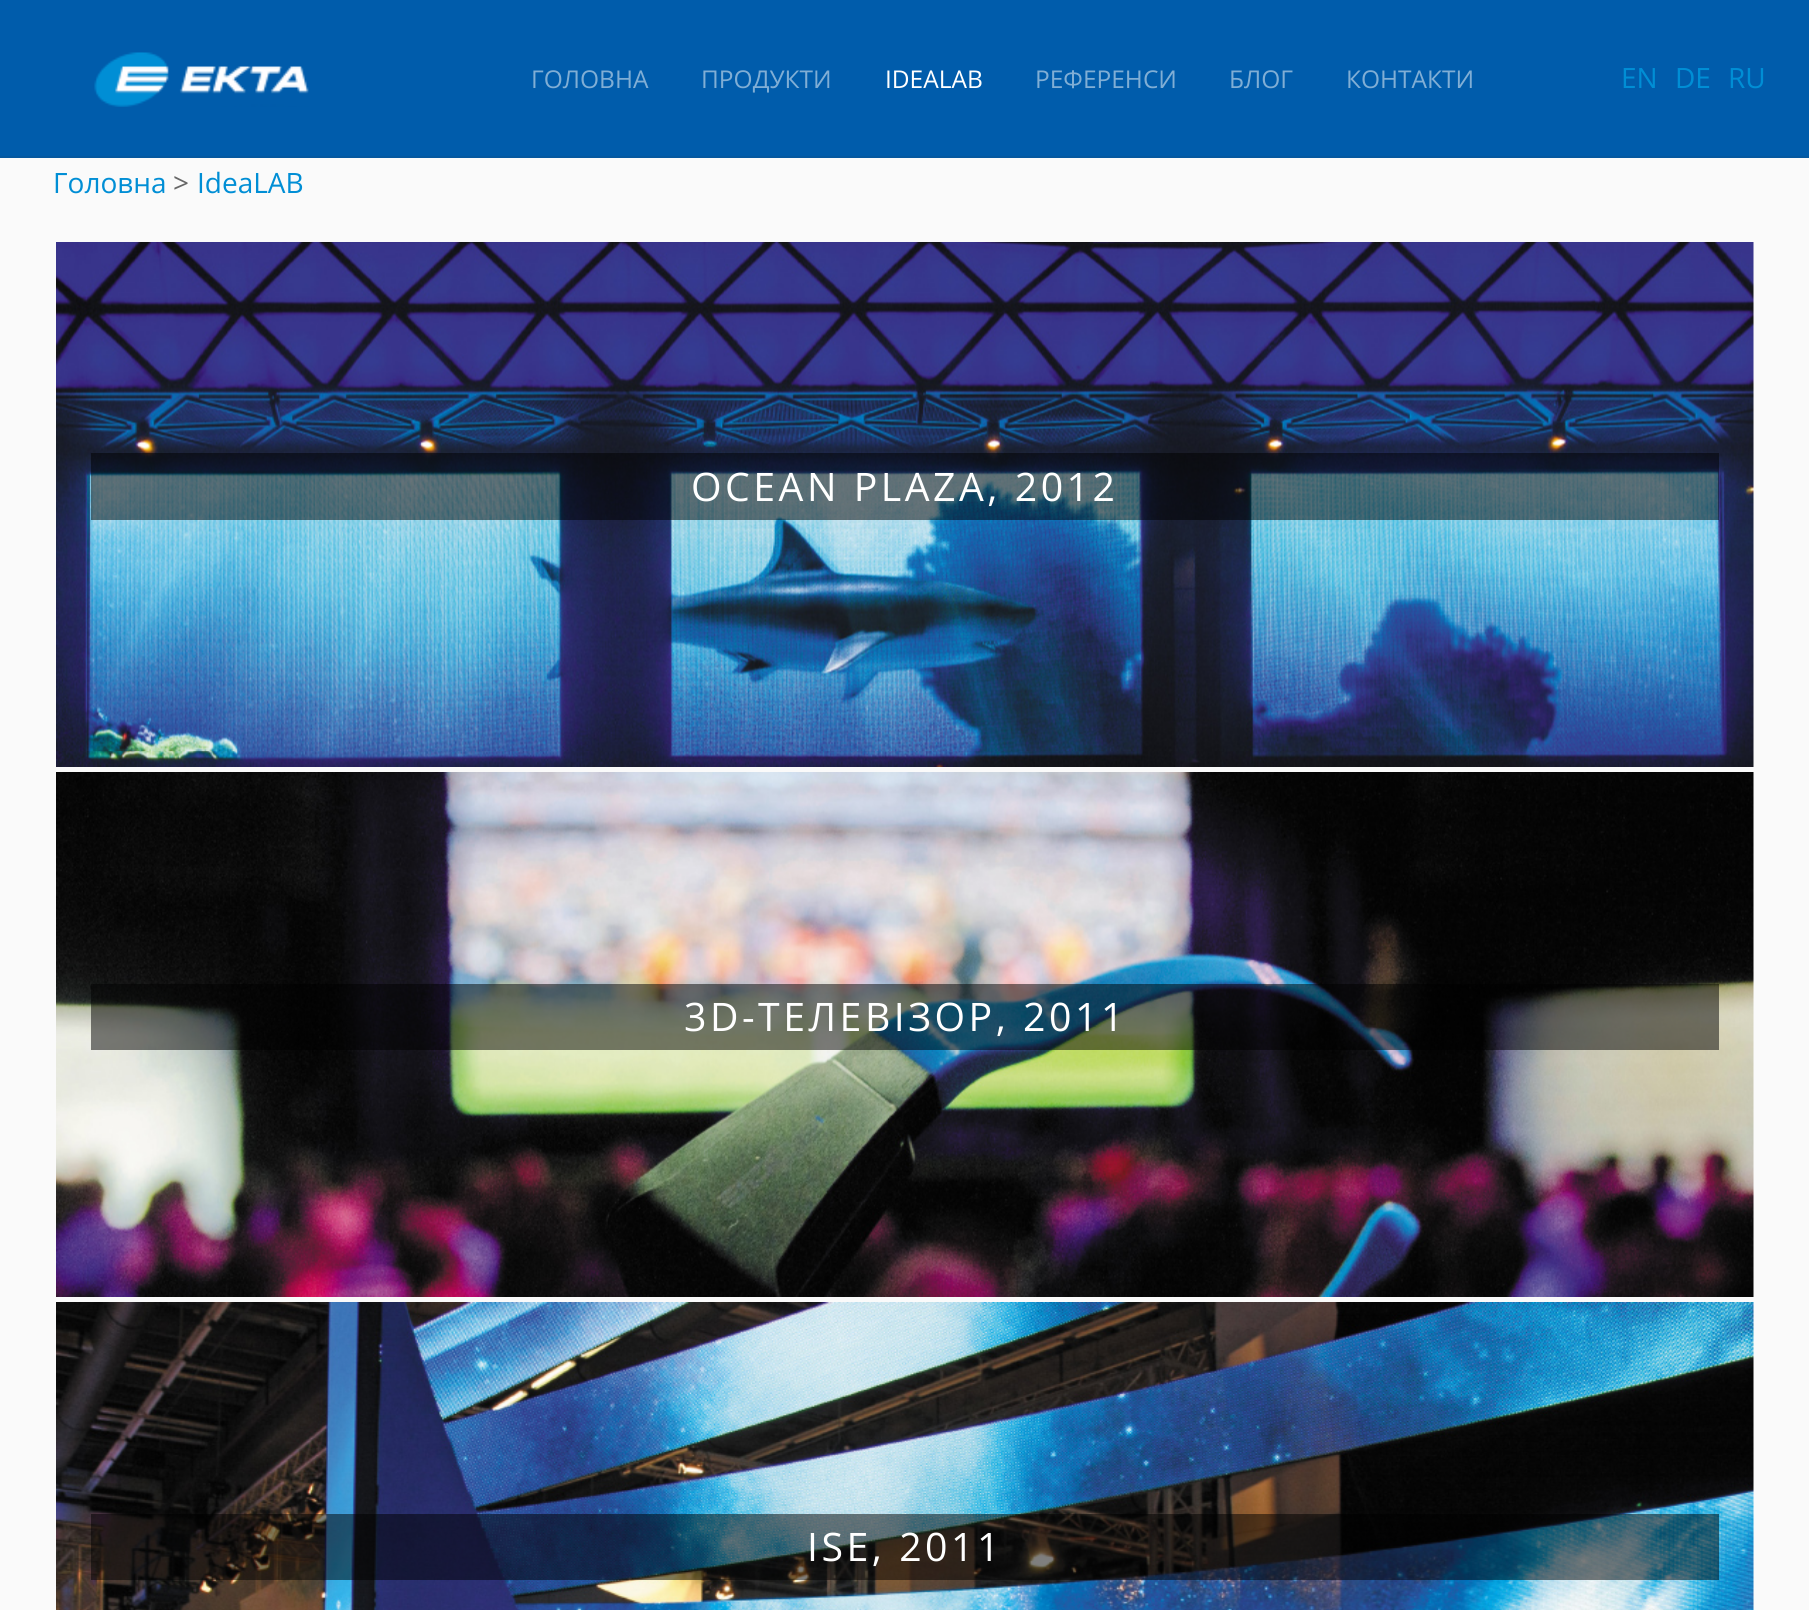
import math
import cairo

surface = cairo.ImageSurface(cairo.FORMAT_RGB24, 1809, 1610)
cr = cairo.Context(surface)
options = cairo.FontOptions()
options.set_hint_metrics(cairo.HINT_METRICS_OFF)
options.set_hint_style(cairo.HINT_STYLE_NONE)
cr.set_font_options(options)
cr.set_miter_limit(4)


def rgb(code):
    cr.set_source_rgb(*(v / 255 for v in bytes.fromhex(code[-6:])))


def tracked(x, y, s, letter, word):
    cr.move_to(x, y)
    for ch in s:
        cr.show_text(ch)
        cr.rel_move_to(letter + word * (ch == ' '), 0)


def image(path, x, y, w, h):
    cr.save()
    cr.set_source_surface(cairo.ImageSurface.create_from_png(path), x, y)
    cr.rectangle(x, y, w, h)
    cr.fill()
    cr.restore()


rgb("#fafafa")
cr.paint()
rgb("#005cab")
cr.rectangle(0, 0, 1809, 156)
cr.fill()
rgb("#05589f")
cr.rectangle(0, 156, 1809, 2)
cr.fill()
image("img/1.png", 94, 52, 215, 55)
image("img/2.png", 56, 242, 1698, 525)
cr.set_source_rgba(0, 0, 0, 0.5)
cr.rectangle(91, 453, 1628, 67)
cr.fill()
image("img/3.png", 56, 772, 1698, 525)
cr.rectangle(91, 984, 1628, 66)
cr.fill()
image("img/4.png", 56, 1302, 1698, 308)
cr.rectangle(91, 1514, 1628, 66)
cr.fill()
cr.select_font_face("Open Sans")
cr.set_font_size(24.5)
rgb("#80aed5")
cr.move_to(531, 88)
cr.show_text("ГОЛОВНА")
cr.move_to(701, 88)
cr.show_text("ПРОДУКТИ")
rgb("#ffffff")
cr.move_to(885, 88)
cr.show_text("IDEALAB")
rgb("#80aed5")
for x, y, s in [
    (1035, 88, "РЕФЕРЕНСИ"),
    (1229, 88, "БЛОГ"),
    (1346, 88, "КОНТАКТИ"),
]:
    cr.move_to(x, y)
    cr.show_text(s)
cr.set_font_size(28)
rgb("#008ed5")
for x, y, s in [
    (1621, 88, "EN"),
    (1675, 88, "DE"),
    (1728, 88, "RU"),
    (53, 193, "Головна"),
]:
    cr.move_to(x, y)
    cr.show_text(s)
rgb("#666666")
cr.move_to(173, 193)
cr.show_text(">")
rgb("#008ed5")
cr.move_to(197, 193)
cr.show_text("IdeaLAB")
cr.set_font_size(39.25)
rgb("#ffffff")
for x, y, s in [
    (691, 501, "OCEAN PLAZA, 2012"),
    (684, 1031, "3D-ТЕЛЕВІЗОР, 2011"),
    (807, 1561, "ISE, 2011"),
]:
    tracked(x, y, s, 3.5, 0)
surface.write_to_png("page.png")
